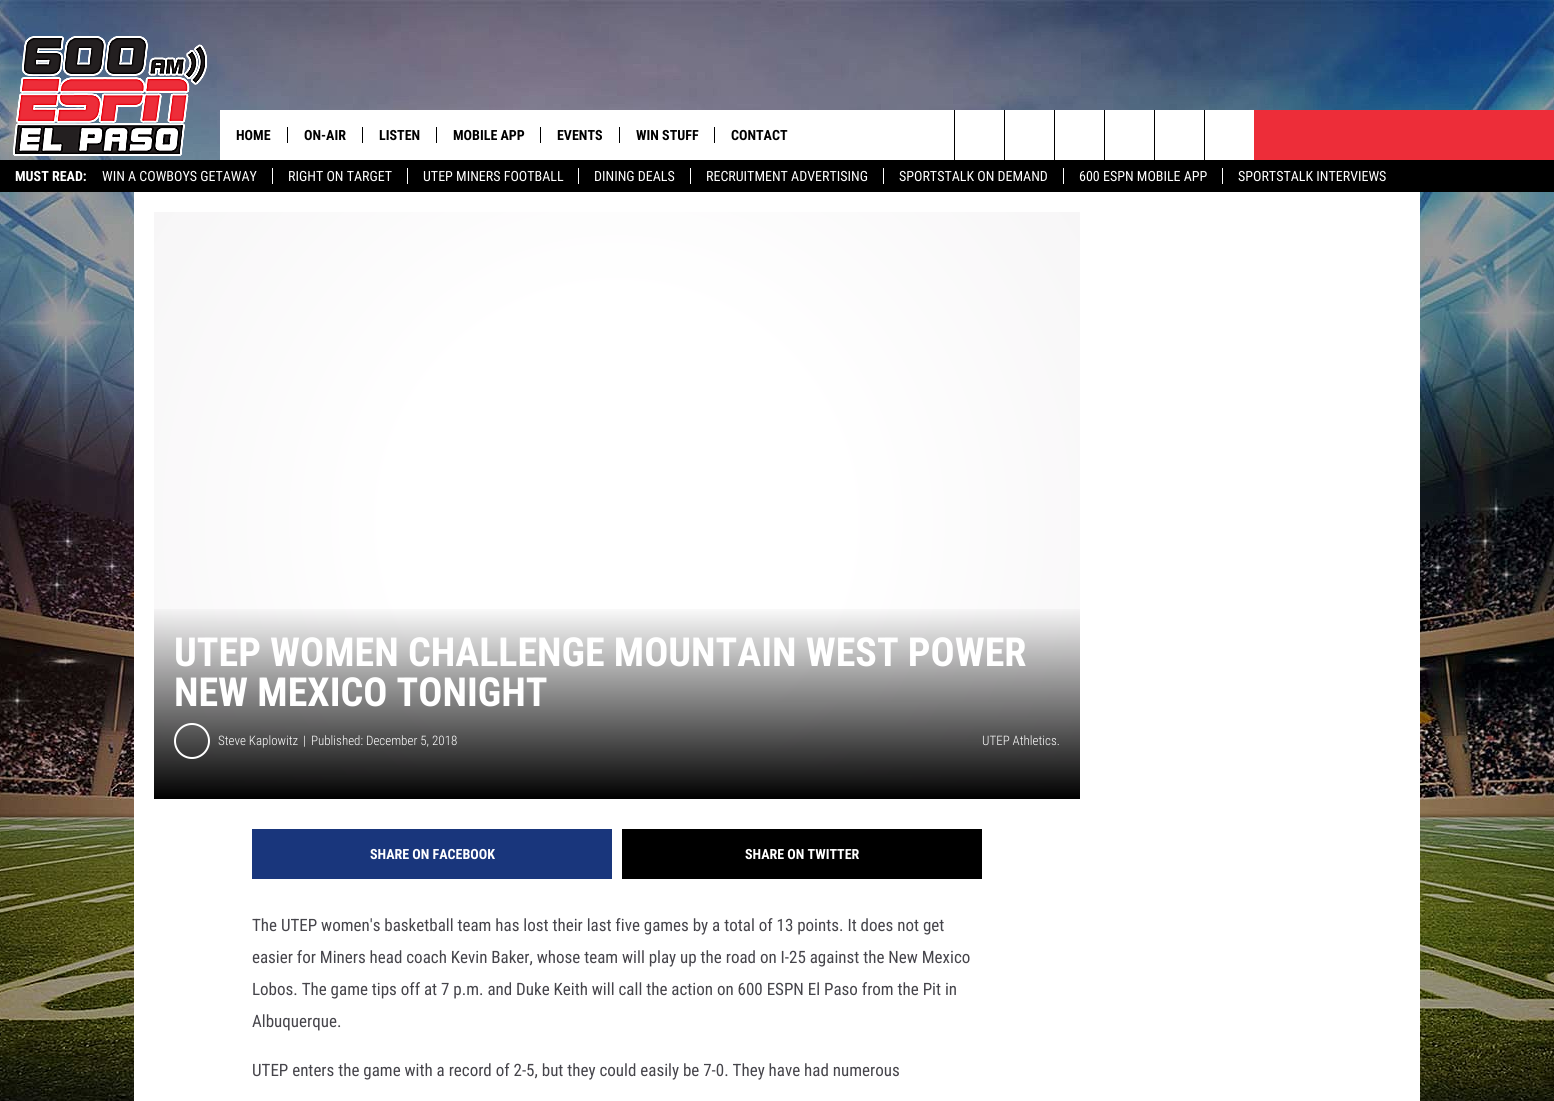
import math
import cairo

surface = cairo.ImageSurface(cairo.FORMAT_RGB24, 1554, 1101)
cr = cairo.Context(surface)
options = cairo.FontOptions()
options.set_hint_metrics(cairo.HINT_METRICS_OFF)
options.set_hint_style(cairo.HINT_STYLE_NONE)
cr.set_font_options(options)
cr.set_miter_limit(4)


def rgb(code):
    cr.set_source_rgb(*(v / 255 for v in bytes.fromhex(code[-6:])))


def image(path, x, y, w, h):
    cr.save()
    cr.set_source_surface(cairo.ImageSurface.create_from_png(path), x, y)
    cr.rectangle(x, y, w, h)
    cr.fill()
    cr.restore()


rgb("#ffffff")
cr.paint()
image("img/1.png", 0, 192, 1554, 909)
image("img/2.png", 0, 0, 1554, 160)
image("img/3.png", 13, 36, 194, 120)
for x, y, w, h, color in [
    (220, 110, 1034, 50, "#ffffff"),
    (287, 127, 1, 16, "#000000"),
    (362, 127, 1, 16, "#000000"),
    (436, 127, 1, 16, "#000000"),
    (540, 127, 1, 16, "#000000"),
    (619, 127, 1, 16, "#000000"),
    (714, 127, 1, 16, "#000000"),
    (954, 110, 1, 50, "#000000"),
    (1004, 110, 1, 50, "#000000"),
    (1054, 110, 1, 50, "#000000"),
    (1104, 110, 1, 50, "#000000"),
    (1154, 110, 1, 50, "#000000"),
    (1204, 110, 1, 50, "#000000"),
    (1254, 110, 300, 50, "#ed2d39"),
    (0, 160, 1554, 32, "#000000"),
    (272, 168, 1, 16, "#ffffff"),
    (407, 168, 1, 16, "#ffffff"),
    (578, 168, 1, 16, "#ffffff"),
    (690, 168, 1, 16, "#ffffff"),
    (883, 168, 1, 16, "#ffffff"),
    (1063, 168, 1, 16, "#ffffff"),
    (1222, 168, 1, 16, "#ffffff"),
    (134, 192, 1286, 909, "#ffffff"),
]:
    rgb(color)
    cr.rectangle(x, y, w, h)
    cr.fill()
gradient = cairo.RadialGradient(617, 521, 0, 617, 521, 556)
gradient.add_color_stop_rgba(0.4, 1, 1, 1, 1)
gradient.add_color_stop_rgba(1, 0.969, 0.965, 0.969, 1)
cr.set_source(gradient)
cr.rectangle(154, 212, 926, 586)
cr.fill()
gradient = cairo.LinearGradient(617, 605, 617, 799)
gradient.add_color_stop_rgba(0, 0, 0, 0, 0)
gradient.add_color_stop_rgba(1, 0, 0, 0, 1)
cr.set_source(gradient)
cr.rectangle(154, 609, 926, 190)
cr.fill()
cr.arc(192, 741, 17, 0, 2 * math.pi)
rgb("#ffffff")
cr.stroke()
rgb("#19367c")
cr.rectangle(252, 829, 360, 50)
cr.fill()
rgb("#000000")
cr.rectangle(622, 829, 360, 50)
cr.fill()
cr.select_font_face("Roboto Condensed", cairo.FONT_SLANT_NORMAL, cairo.FONT_WEIGHT_BOLD)
cr.set_font_size(14)
for x, y, s in [
    (236, 140, "HOME"),
    (304, 140, "ON-AIR"),
    (379, 140, "LISTEN"),
    (453, 140, "MOBILE APP"),
    (557, 140, "EVENTS"),
    (636, 140, "WIN STUFF"),
    (731, 140, "CONTACT"),
]:
    cr.move_to(x, y)
    cr.show_text(s)
rgb("#ffffff")
cr.move_to(15, 181)
cr.show_text("MUST READ:")
cr.select_font_face("Roboto Condensed")
for x, y, s in [
    (102, 181, "WIN A COWBOYS GETAWAY"),
    (288, 181, "RIGHT ON TARGET"),
    (423, 181, "UTEP MINERS FOOTBALL"),
    (594, 181, "DINING DEALS"),
    (706, 181, "RECRUITMENT ADVERTISING"),
    (899, 181, "SPORTSTALK ON DEMAND"),
    (1079, 181, "600 ESPN MOBILE APP"),
    (1238, 181, "SPORTSTALK INTERVIEWS"),
]:
    cr.move_to(x, y)
    cr.show_text(s)
cr.select_font_face("Roboto Condensed", cairo.FONT_SLANT_NORMAL, cairo.FONT_WEIGHT_BOLD)
cr.set_font_size(40)
cr.move_to(174, 666)
cr.show_text("UTEP WOMEN CHALLENGE MOUNTAIN WEST POWER")
cr.move_to(174, 706)
cr.show_text("NEW MEXICO TONIGHT")
cr.select_font_face("Roboto Condensed Light")
cr.set_font_size(13)
for x, y, s in [
    (218, 745, "Steve Kaplowitz"),
    (303, 745, "|"),
    (311, 745, "Published: December 5, 2018"),
    (982, 745, "UTEP Athletics."),
]:
    cr.move_to(x, y)
    cr.show_text(s)
cr.select_font_face("Roboto Condensed", cairo.FONT_SLANT_NORMAL, cairo.FONT_WEIGHT_BOLD)
cr.set_font_size(14)
cr.move_to(370, 859)
cr.show_text("SHARE ON FACEBOOK")
cr.move_to(745, 859)
cr.show_text("SHARE ON TWITTER")
cr.select_font_face("Roboto Condensed")
cr.set_font_size(17)
rgb("#45444a")
for x, y, s in [
    (252, 931, "The UTEP women's basketball team has lost their last five games by a total of 13 points. It does not get"),
    (252, 963, "easier for Miners head coach Kevin Baker, whose team will play up the road on I-25 against the New Mexico"),
    (252, 995, "Lobos. The game tips off at 7 p.m. and Duke Keith will call the action on 600 ESPN El Paso from the Pit in"),
    (252, 1027, "Albuquerque."),
    (252, 1076, "UTEP enters the game with a record of 2-5, but they could easily be 7-0. They have had numerous"),
]:
    cr.move_to(x, y)
    cr.show_text(s)
surface.write_to_png("page.png")
